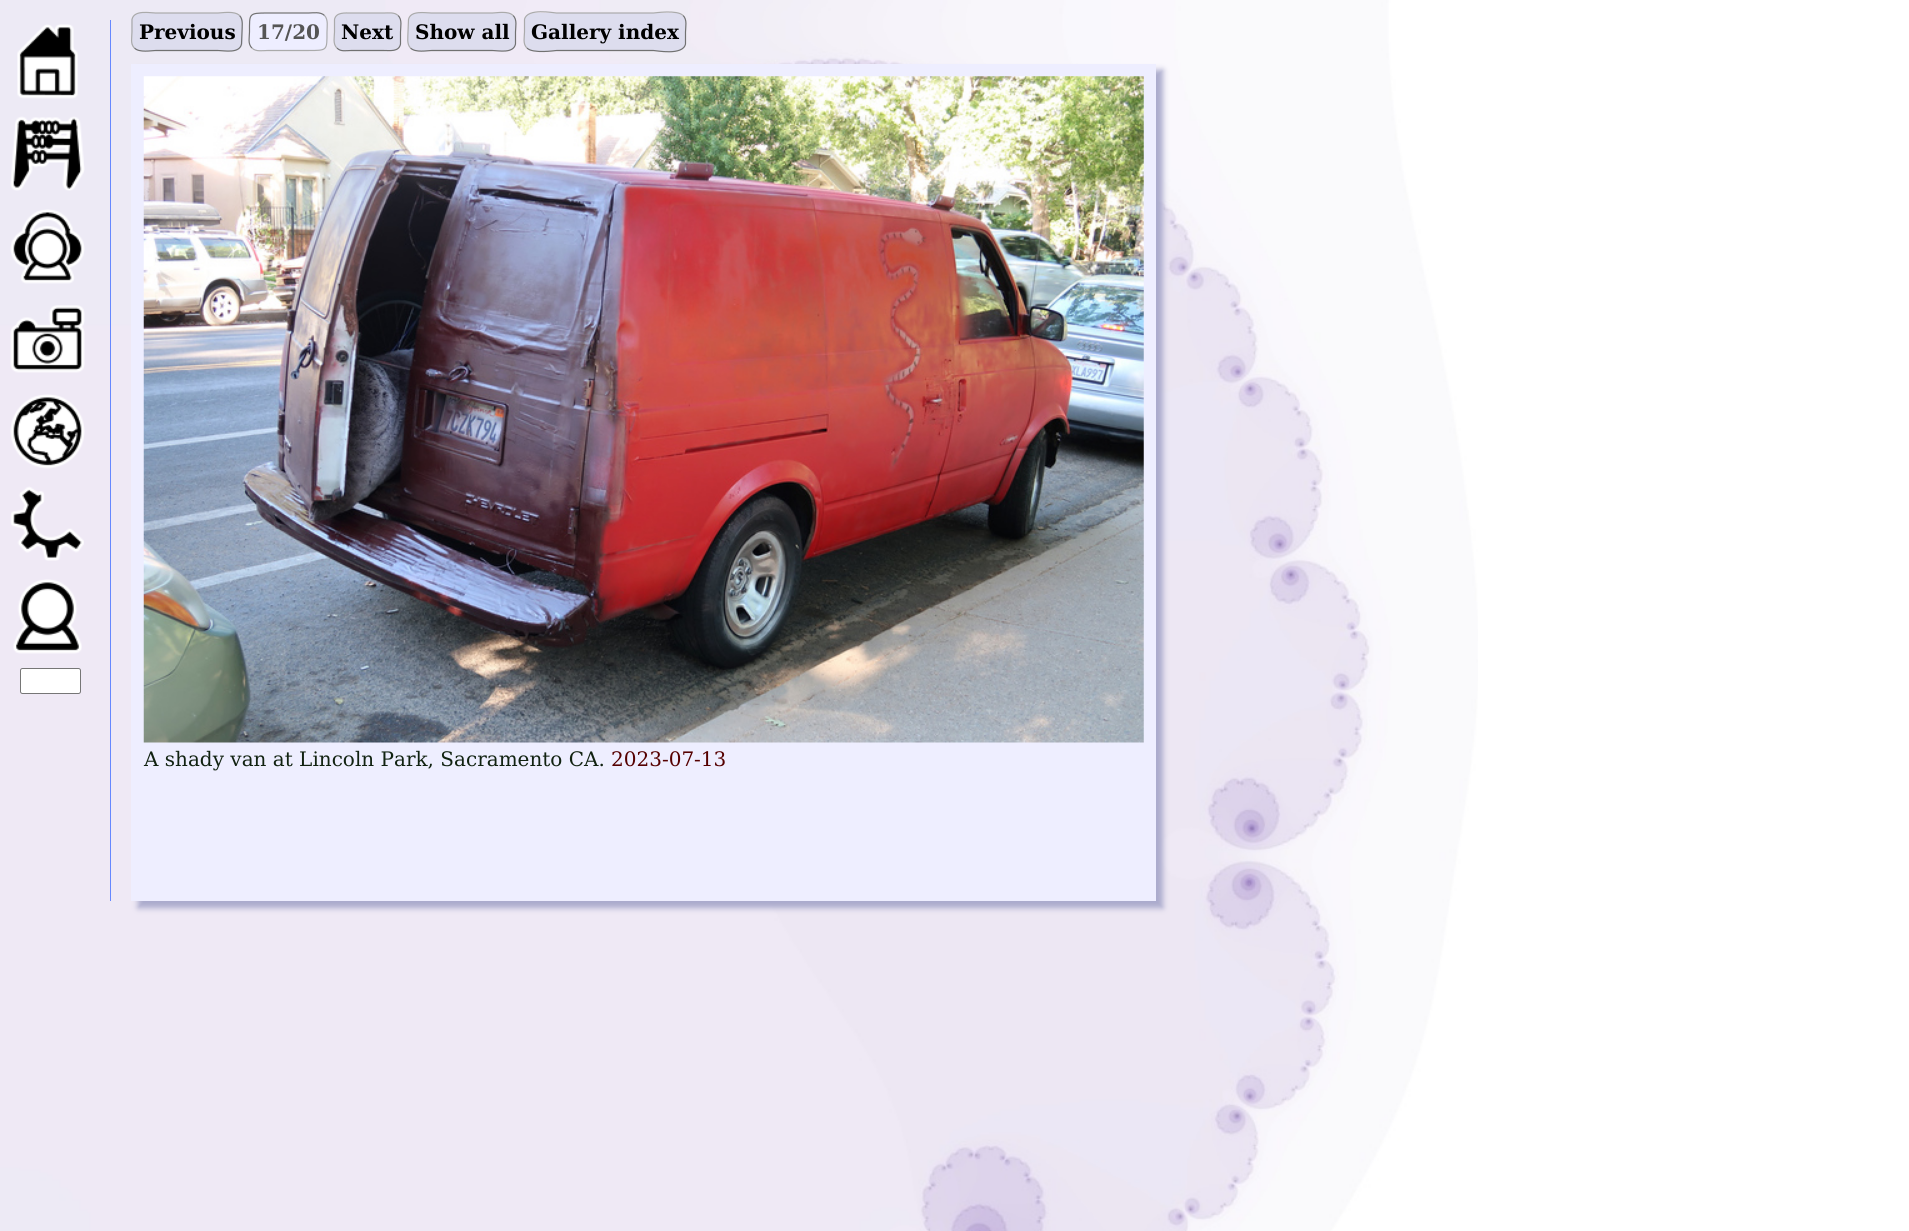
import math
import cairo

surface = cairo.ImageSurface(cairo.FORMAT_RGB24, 1909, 1231)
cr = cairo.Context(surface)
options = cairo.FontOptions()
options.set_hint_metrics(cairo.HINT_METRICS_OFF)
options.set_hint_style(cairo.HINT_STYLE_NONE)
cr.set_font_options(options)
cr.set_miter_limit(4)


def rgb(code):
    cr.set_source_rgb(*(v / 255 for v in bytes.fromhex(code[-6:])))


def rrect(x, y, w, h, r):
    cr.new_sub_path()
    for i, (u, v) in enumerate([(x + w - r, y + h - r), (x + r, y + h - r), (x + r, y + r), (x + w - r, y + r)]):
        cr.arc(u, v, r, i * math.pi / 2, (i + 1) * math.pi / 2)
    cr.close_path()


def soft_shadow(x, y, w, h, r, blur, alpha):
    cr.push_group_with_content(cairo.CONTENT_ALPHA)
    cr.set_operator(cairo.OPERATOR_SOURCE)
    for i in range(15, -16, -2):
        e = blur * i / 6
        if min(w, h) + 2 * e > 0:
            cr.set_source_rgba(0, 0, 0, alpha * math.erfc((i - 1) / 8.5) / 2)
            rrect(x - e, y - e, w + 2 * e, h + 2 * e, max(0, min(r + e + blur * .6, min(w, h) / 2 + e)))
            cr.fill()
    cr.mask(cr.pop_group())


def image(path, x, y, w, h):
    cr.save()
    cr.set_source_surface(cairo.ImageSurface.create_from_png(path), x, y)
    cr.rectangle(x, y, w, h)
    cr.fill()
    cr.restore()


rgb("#ffffff")
cr.paint()
image("img/1.png", 0, 0, 1478, 1231)
image("img/2.png", 17, 24, 61, 75)
image("img/3.png", 10, 116, 75, 75)
image("img/4.png", 10, 209, 75, 75)
image("img/5.png", 10, 305, 75, 68)
image("img/6.png", 10, 394, 75, 75)
image("img/7.png", 10, 486, 74, 75)
image("img/8.png", 13, 579, 69, 75)
rgb("#ffffff")
rrect(20.5, 668.5, 60, 25, 2)
cr.fill_preserve()
rgb("#767676")
cr.set_line_width(1)
cr.stroke()
rgb("#6688ff")
cr.rectangle(110, 20, 1, 881)
cr.fill()
rgb("#ddddee")
rrect(131, 13, 112, 38, 9)
cr.fill()
cr.new_path()
cr.move_to(239.5, 15.5)
cr.curve_to(243.5, 19.5, 242, 27, 242, 32)
cr.line_to(241.5, 44)
cr.curve_to(239.5, 54, 224, 50.5, 218, 50.5)
cr.line_to(155.5, 50.5)
cr.curve_to(152, 50.5, 139, 53, 134.5, 48)
rgb("#717171")
cr.set_line_width(1.2)
cr.stroke()
cr.new_path()
cr.move_to(134.5, 48)
cr.curve_to(130, 44, 132, 37, 132, 32)
cr.line_to(132, 19.5)
cr.curve_to(134, 9.5, 150, 13, 155.5, 13)
cr.line_to(218, 13)
cr.curve_to(221.5, 13, 234.5, 10.5, 239.5, 15.5)
rgb("#aaaaaa")
cr.stroke()
rgb("#eeeeff")
rrect(249, 13, 79, 38, 9)
cr.fill()
cr.new_path()
cr.move_to(324.5, 15.5)
cr.curve_to(328.5, 19.5, 327, 27, 327, 32)
cr.curve_to(327, 50.5, 327.5, 50.5, 308.5, 50.5)
cr.line_to(267.5, 50.5)
cr.curve_to(263, 50.5, 255.5, 52, 252, 48)
rgb("#aaaaaa")
cr.stroke()
cr.new_path()
cr.move_to(252, 48)
cr.curve_to(247.5, 44, 249.5, 37, 249.5, 32)
cr.curve_to(249.5, 13.5, 248.5, 13, 267.5, 13)
cr.line_to(308.5, 13)
cr.curve_to(313, 13, 320.5, 11.5, 324.5, 15.5)
rgb("#717171")
cr.stroke()
rgb("#ddddee")
rrect(334, 13, 67, 38, 9)
cr.fill()
cr.new_path()
cr.move_to(398, 15.5)
cr.curve_to(402.5, 19.5, 400.5, 27, 400.5, 32)
cr.line_to(400.5, 44)
cr.curve_to(399, 52, 390, 50.5, 384, 50.5)
cr.line_to(351, 50.5)
cr.curve_to(346.5, 50.5, 340.5, 52, 337, 48)
rgb("#717171")
cr.stroke()
cr.new_path()
cr.move_to(337, 48)
cr.curve_to(332.5, 44, 334.5, 37, 334.5, 32)
cr.line_to(334.5, 19.5)
cr.curve_to(336, 12, 345, 13, 351, 13)
cr.line_to(384, 13)
cr.curve_to(388.5, 13, 394.5, 12, 398, 15.5)
rgb("#aaaaaa")
cr.stroke()
rgb("#ddddee")
rrect(408, 13, 108, 38, 9)
cr.fill()
cr.new_path()
cr.move_to(513, 15.5)
cr.curve_to(517.5, 19.5, 515.5, 27, 515.5, 32)
cr.line_to(515.5, 44)
cr.curve_to(513.5, 54, 498, 50.5, 492.5, 50.5)
cr.line_to(431.5, 50.5)
cr.curve_to(427.5, 50.5, 415.5, 53, 410.5, 48)
rgb("#717171")
cr.stroke()
cr.new_path()
cr.move_to(410.5, 48)
cr.curve_to(406.5, 44, 408, 37, 408, 32)
cr.line_to(408.5, 19.5)
cr.curve_to(410.5, 10, 425.5, 13, 431.5, 13)
cr.line_to(492.5, 13)
cr.curve_to(496, 13, 508.5, 10.5, 513, 15.5)
rgb("#aaaaaa")
cr.stroke()
rgb("#ddddee")
rrect(524, 13, 162, 38, 9)
cr.fill()
cr.new_path()
cr.move_to(683, 15.5)
cr.curve_to(687.5, 19.5, 685.5, 27, 685.5, 32)
cr.line_to(685.5, 44)
cr.curve_to(683, 56, 656, 50.5, 653.5, 50.5)
cr.line_to(556.5, 50.5)
cr.curve_to(555.5, 50.5, 532.5, 54, 527, 48)
rgb("#717171")
cr.stroke()
cr.new_path()
cr.move_to(527, 48)
cr.curve_to(522.5, 44, 524.5, 37, 524.5, 32)
cr.line_to(524.5, 19.5)
cr.curve_to(527, 7.5, 554, 13, 556.5, 13)
cr.line_to(653.5, 13)
cr.curve_to(654.5, 13, 677.5, 9.5, 683, 15.5)
rgb("#aaaaaa")
cr.stroke()
rgb("#aaaacc")
soft_shadow(138, 70, 1025, 838, 0, 3, 1)
rgb("#eeeeff")
cr.rectangle(131, 64, 1025, 837)
cr.fill()
image("img/9.png", 143, 76, 1001, 667)
cr.select_font_face("DejaVu Serif", cairo.FONT_SLANT_NORMAL, cairo.FONT_WEIGHT_BOLD)
cr.set_font_size(20)
rgb("#000000")
cr.move_to(139, 39)
cr.show_text("Previous")
rgb("#555555")
cr.move_to(257, 39)
cr.show_text("17/20")
rgb("#000000")
for x, y, s in [
    (341, 39, "Next"),
    (415, 39, "Show all"),
    (531, 39, "Gallery index"),
]:
    cr.move_to(x, y)
    cr.show_text(s)
cr.select_font_face("DejaVu Serif")
rgb("#112211")
cr.move_to(144, 766)
cr.show_text("A shady van at Lincoln Park, Sacramento CA.")
rgb("#550000")
cr.move_to(611, 766)
cr.show_text("2023-07-13")
surface.write_to_png("page.png")
